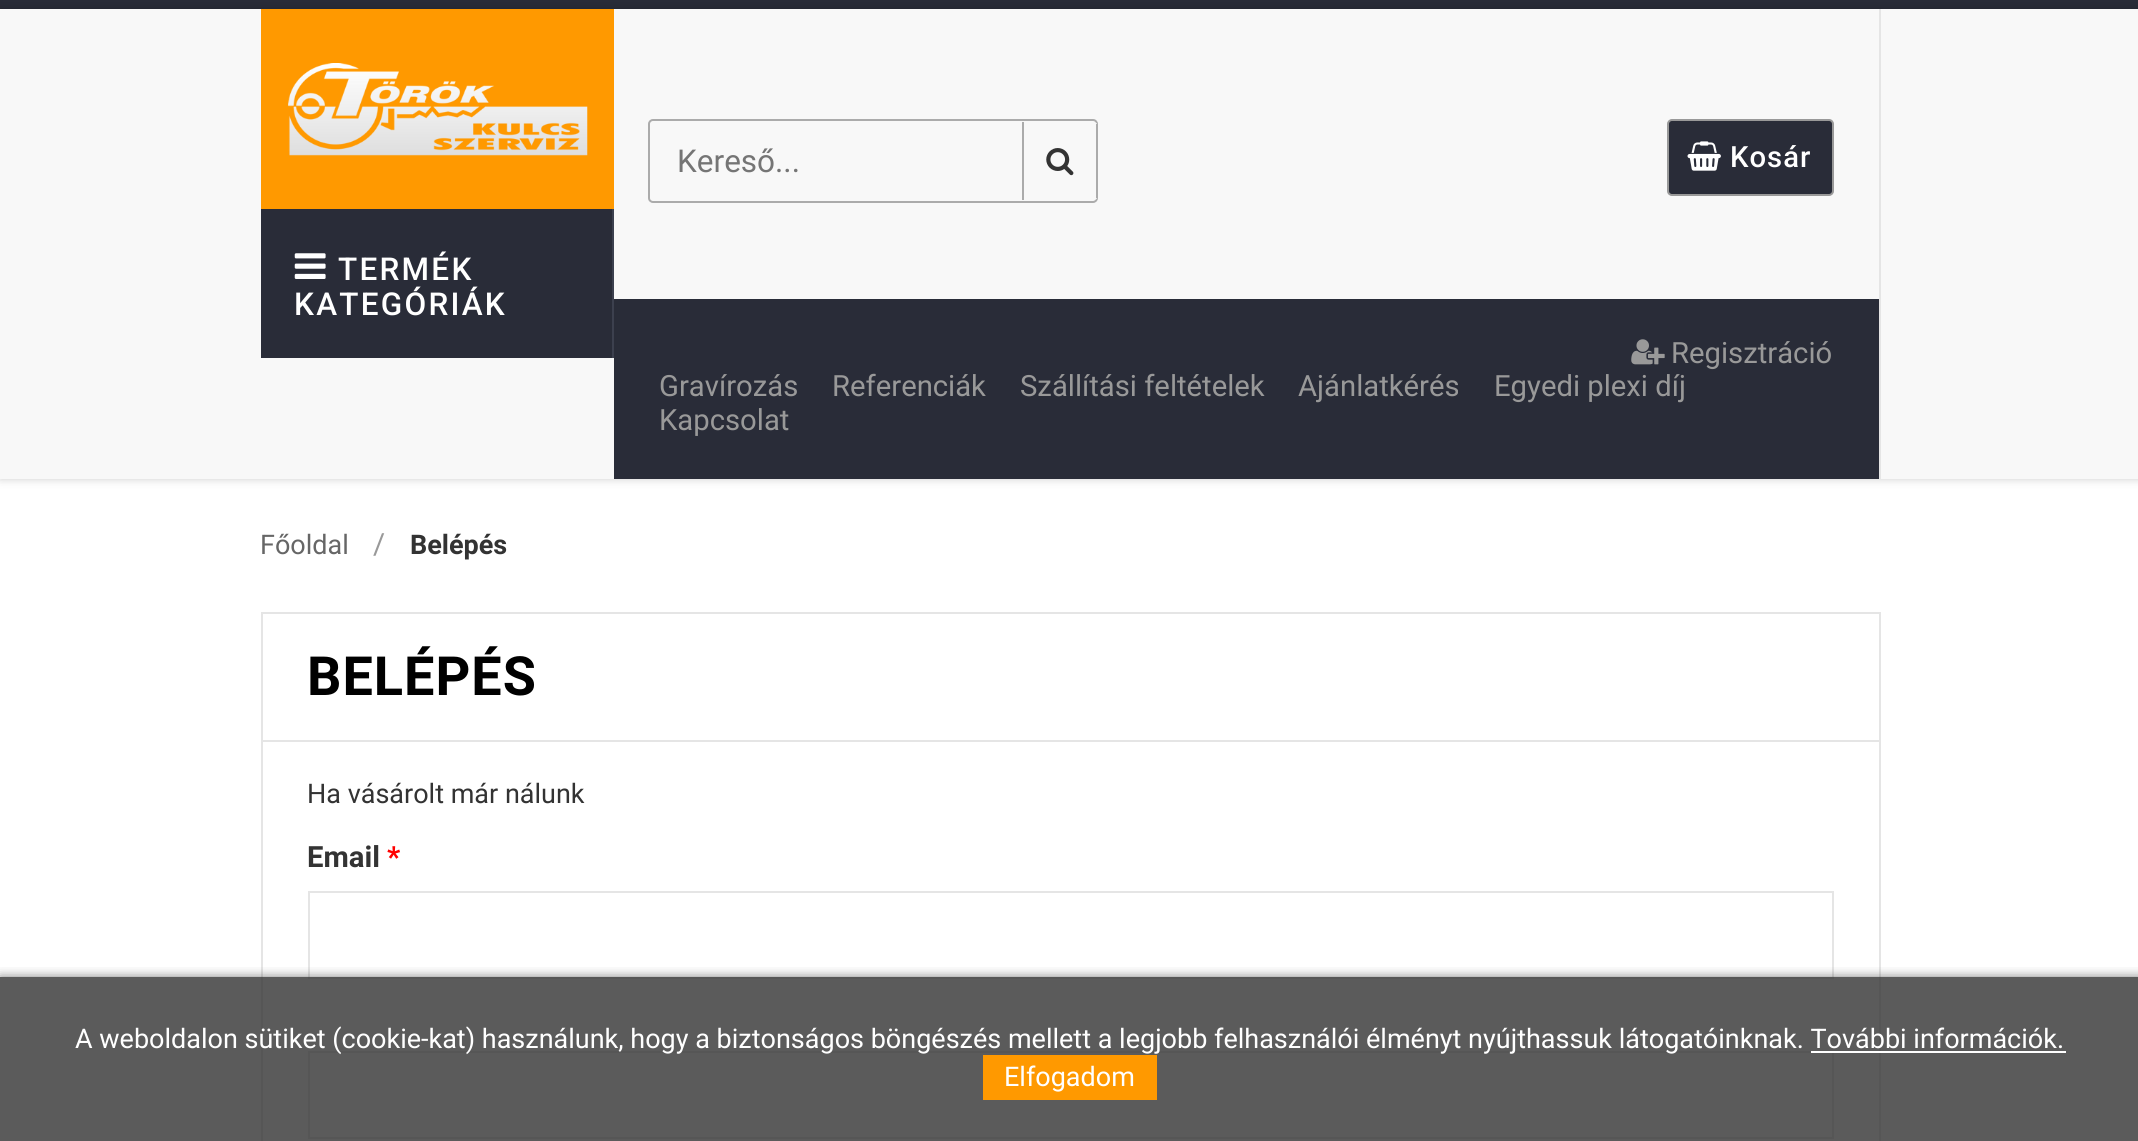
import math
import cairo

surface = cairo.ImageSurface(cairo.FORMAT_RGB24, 2138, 1141)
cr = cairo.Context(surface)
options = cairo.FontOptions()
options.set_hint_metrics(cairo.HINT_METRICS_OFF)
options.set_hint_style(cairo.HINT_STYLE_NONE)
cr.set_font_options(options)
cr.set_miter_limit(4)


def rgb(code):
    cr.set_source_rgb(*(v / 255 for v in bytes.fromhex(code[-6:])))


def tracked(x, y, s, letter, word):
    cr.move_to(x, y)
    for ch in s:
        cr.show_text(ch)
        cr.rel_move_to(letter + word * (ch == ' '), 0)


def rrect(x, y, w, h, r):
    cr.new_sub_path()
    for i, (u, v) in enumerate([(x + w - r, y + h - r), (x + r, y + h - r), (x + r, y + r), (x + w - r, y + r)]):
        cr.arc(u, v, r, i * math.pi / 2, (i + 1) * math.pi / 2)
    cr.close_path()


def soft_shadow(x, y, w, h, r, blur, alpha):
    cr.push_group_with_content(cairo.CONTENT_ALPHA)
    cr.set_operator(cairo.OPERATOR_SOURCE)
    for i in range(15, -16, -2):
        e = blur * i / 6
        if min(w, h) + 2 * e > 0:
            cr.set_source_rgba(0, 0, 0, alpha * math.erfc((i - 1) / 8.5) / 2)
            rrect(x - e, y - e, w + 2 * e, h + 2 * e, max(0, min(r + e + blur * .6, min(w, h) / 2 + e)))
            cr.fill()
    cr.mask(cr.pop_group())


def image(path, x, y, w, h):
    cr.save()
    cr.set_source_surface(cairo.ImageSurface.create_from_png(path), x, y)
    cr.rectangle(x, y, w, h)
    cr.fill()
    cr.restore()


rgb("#ffffff")
cr.paint()
rgb("#292c38")
cr.rectangle(0, 0, 2138, 9)
cr.fill()
rgb("#000000")
soft_shadow(0, 9, 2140, 470, 0, 4.5, 0.2)
rgb("#f8f8f8")
cr.rectangle(0, 9, 2138, 470)
cr.fill()
rgb("#ff9900")
cr.rectangle(261, 9, 353, 200)
cr.fill()
image("img/1.png", 288, 63, 300, 93)
rgb("#292c38")
cr.rectangle(261, 209, 351, 149)
cr.fill()
rgb("#3c404e")
cr.rectangle(612, 209, 2, 149)
cr.fill()
image("img/2.png", 294, 253, 32, 26)
rgb("#e5e5e5")
cr.rectangle(1879, 9, 2, 470)
cr.fill()
rrect(649, 120, 448, 82, 4)
rgb("#ababab")
cr.stroke()
rgb("#f8f8f8")
cr.new_path()
cr.move_to(1022, 122)
cr.line_to(1093, 122)
cr.curve_to(1096, 122, 1098, 124, 1098, 127)
cr.line_to(1098, 195)
cr.curve_to(1098, 198, 1096, 200, 1093, 200)
cr.line_to(1022, 200)
cr.close_path()
cr.fill()
rgb("#ababab")
cr.rectangle(1096, 124, 2, 74)
cr.fill()
cr.rectangle(1022, 122, 2, 78)
cr.fill()
image("img/3.png", 1046, 148, 28, 28)
rgb("#292c38")
rrect(1668, 120, 165, 75, 4)
cr.fill_preserve()
rgb("#999999")
cr.stroke()
image("img/4.png", 1687, 141, 34, 30)
rgb("#292c38")
cr.rectangle(614, 299, 1265, 180)
cr.fill()
image("img/5.png", 1631, 339, 34, 26)
cr.rectangle(262, 613, 1618, 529)
rgb("#e5e5e5")
cr.stroke()
cr.rectangle(263, 740, 1616, 2)
cr.fill()
cr.rectangle(309, 892, 1524, 86)
cr.stroke()
cr.rectangle(309, 1052, 1524, 86)
cr.stroke()
cr.save()
cr.rectangle(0, 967, 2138, 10)
cr.clip()
rgb("#000000")
soft_shadow(0, 977, 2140, 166, 0, 5.5, 0.5)
cr.restore()
cr.set_source_rgba(0.2, 0.2, 0.2, 0.8)
cr.rectangle(0, 977, 2138, 164)
cr.fill()
rgb("#ffffff")
cr.rectangle(1811, 1051, 255, 2)
cr.fill()
rgb("#ff9900")
cr.rectangle(983, 1055, 174, 45)
cr.fill()
cr.select_font_face("Roboto Medium")
cr.set_font_size(31.5)
rgb("#ffffff")
tracked(338, 280, "TERMÉK", 2.25, 0)
tracked(294, 315, "KATEGÓRIÁK", 2.25, 0)
cr.select_font_face("Roboto")
rgb("#757575")
cr.move_to(677, 172)
cr.show_text("Kereső...")
cr.select_font_face("Roboto Medium")
cr.set_font_size(29.25)
rgb("#ffffff")
tracked(1730, 167, "Kosár", 1, 0)
cr.select_font_face("Roboto")
rgb("#999999")
for x, y, s in [
    (1671, 363, "Regisztráció"),
    (659, 396, "Gravírozás"),
    (832, 396, "Referenciák"),
    (1020, 396, "Szállítási feltételek"),
    (1298, 396, "Ajánlatkérés"),
    (1494, 396, "Egyedi plexi díj"),
    (659, 430, "Kapcsolat"),
]:
    cr.move_to(x, y)
    cr.show_text(s)
cr.set_font_size(27)
rgb("#666666")
cr.move_to(260, 554)
cr.show_text("Főoldal")
cr.set_font_size(29.25)
rgb("#999999")
cr.move_to(373, 554)
cr.show_text("/")
cr.select_font_face("Roboto", cairo.FONT_SLANT_NORMAL, cairo.FONT_WEIGHT_BOLD)
cr.set_font_size(27)
rgb("#333333")
cr.move_to(410, 554)
cr.show_text("Belépés")
cr.set_font_size(54)
rgb("#000000")
tracked(307, 695, "BELÉPÉS", 1, 0)
cr.select_font_face("Roboto")
cr.set_font_size(27)
rgb("#333333")
cr.move_to(307, 803)
cr.show_text("Ha vásárolt már nálunk")
cr.select_font_face("Roboto", cairo.FONT_SLANT_NORMAL, cairo.FONT_WEIGHT_BOLD)
cr.set_font_size(29.25)
cr.move_to(307, 867)
cr.show_text("Email")
rgb("#ff0000")
cr.move_to(387, 867)
cr.show_text("*")
cr.select_font_face("Roboto")
cr.set_font_size(27)
rgb("#ffffff")
cr.move_to(75, 1048)
cr.show_text("A weboldalon sütiket (cookie-kat) használunk, hogy a biztonságos böngészés mellett a legjobb felhasználói élményt nyújthassuk látogatóinknak. További információk.")
cr.move_to(1004, 1086)
cr.show_text("Elfogadom")
surface.write_to_png("page.png")
